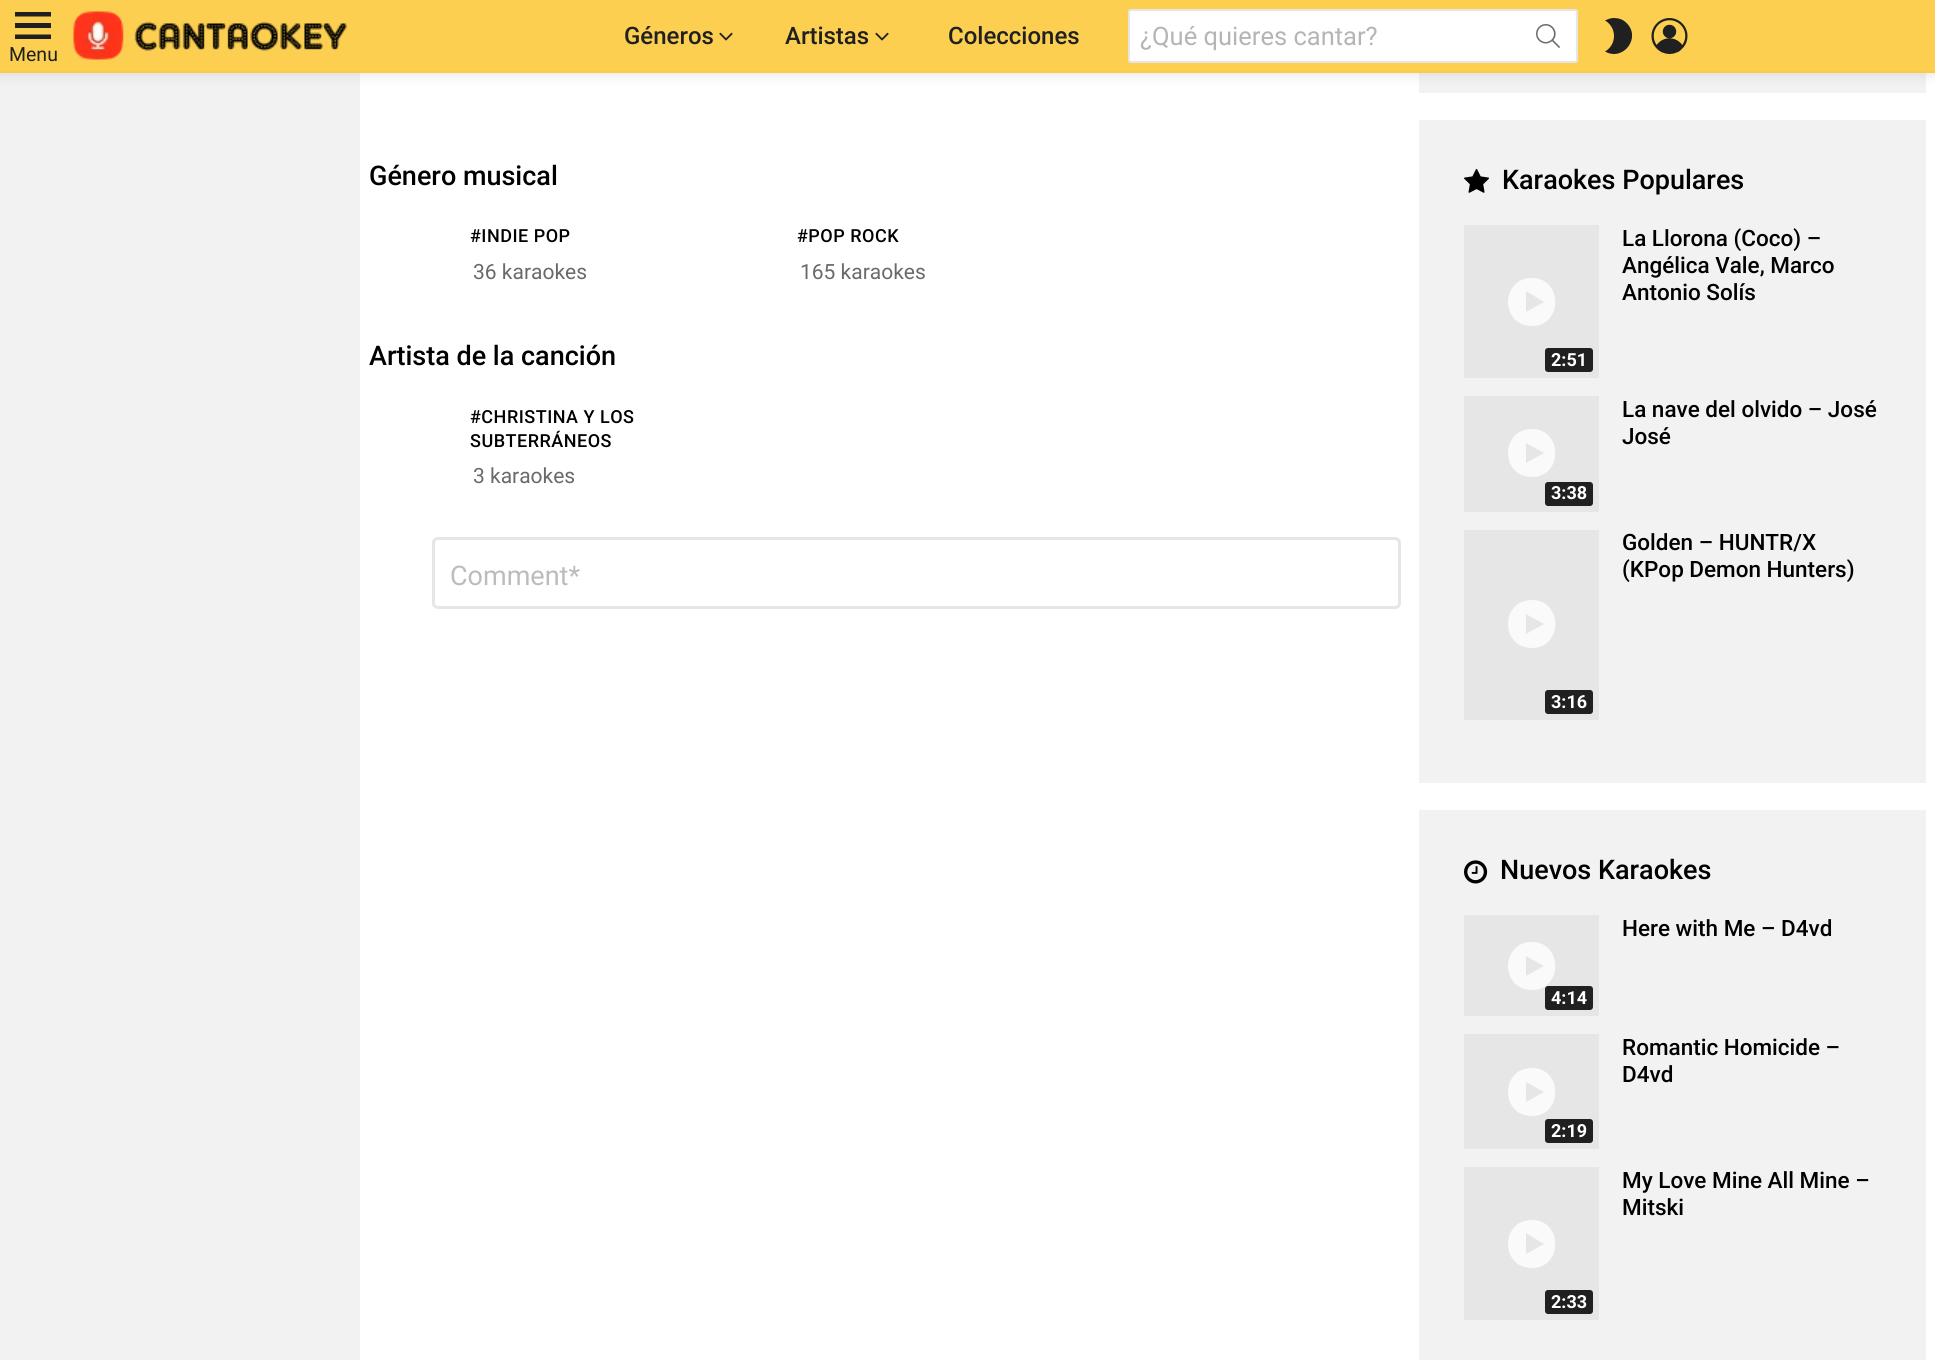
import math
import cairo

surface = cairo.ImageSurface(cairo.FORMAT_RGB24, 1935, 1360)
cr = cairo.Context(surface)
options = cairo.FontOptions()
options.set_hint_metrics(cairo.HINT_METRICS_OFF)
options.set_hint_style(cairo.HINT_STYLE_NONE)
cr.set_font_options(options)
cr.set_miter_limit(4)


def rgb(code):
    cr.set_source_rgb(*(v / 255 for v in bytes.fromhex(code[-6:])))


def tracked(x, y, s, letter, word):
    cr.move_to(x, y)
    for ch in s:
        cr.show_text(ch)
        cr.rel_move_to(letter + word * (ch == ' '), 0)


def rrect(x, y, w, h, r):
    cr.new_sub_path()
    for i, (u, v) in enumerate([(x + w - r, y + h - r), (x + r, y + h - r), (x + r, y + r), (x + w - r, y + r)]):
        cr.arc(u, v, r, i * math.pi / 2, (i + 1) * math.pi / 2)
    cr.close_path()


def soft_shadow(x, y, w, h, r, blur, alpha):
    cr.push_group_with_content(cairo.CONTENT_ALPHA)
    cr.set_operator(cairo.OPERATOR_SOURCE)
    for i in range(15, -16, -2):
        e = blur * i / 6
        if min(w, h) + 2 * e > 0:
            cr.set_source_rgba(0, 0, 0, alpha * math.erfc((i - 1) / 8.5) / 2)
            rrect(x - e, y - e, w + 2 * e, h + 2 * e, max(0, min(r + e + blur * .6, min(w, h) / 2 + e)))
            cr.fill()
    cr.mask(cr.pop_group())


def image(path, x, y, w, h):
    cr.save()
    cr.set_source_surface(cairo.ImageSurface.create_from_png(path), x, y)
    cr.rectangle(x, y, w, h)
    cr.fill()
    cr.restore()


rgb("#ffffff")
cr.paint()
rgb("#f2f2f2")
cr.rectangle(1419, 73, 507, 20)
cr.fill()
cr.rectangle(0, 73, 360, 1287)
cr.fill()
rgb("#000000")
soft_shadow(0, 0, 1935, 72, 0, 7.5, 0.15)
rgb("#fccf51")
cr.rectangle(0, 0, 1935, 71)
cr.fill()
rgb("#fccb44")
cr.rectangle(0, 71, 1935, 2)
cr.fill()
image("img/1.png", 719, 32, 14, 9)
image("img/1.png", 875, 32, 14, 9)
rgb("#ffffff")
rrect(1129, 10, 448, 52, 2)
cr.fill_preserve()
rgb("#e6e6e6")
cr.stroke()
image("img/2.png", 1536, 24, 24, 24)
rgb("#202020")
cr.new_path()
cr.move_to(1614, 18)
cr.curve_to(1611, 18, 1608, 19, 1605, 20.5)
cr.curve_to(1617, 27.5, 1617, 44.5, 1605, 51.5)
cr.curve_to(1623.5, 62, 1642, 37, 1626, 22.5)
cr.curve_to(1623, 19.5, 1618.5, 18, 1614, 18)
cr.close_path()
cr.fill()
image("img/3.png", 1651, 18, 37, 36)
cr.new_path()
cr.move_to(15, 12)
cr.line_to(51, 12)
cr.line_to(51, 16.5)
cr.line_to(15, 16.5)
cr.close_path()
cr.move_to(15, 23)
cr.line_to(51, 23)
cr.line_to(51, 28)
cr.line_to(15, 28)
cr.close_path()
cr.move_to(15, 34.5)
cr.line_to(51, 34.5)
cr.line_to(51, 39)
cr.line_to(15, 39)
cr.close_path()
cr.fill()
image("img/4.png", 73, 11, 274, 49)
rrect(433.5, 538.5, 966, 69, 4.5)
rgb("#e6e6e6")
cr.set_line_width(3)
cr.stroke()
rgb("#f2f2f2")
cr.rectangle(1419, 120, 507, 663)
cr.fill()
image("img/5.png", 1464, 169, 25, 24)
rgb("#e6e6e6")
cr.rectangle(1464, 225, 135, 153)
cr.fill()
rgb("#fafafa")
cr.new_path()
cr.move_to(1532, 278)
cr.curve_to(1500, 278, 1500, 326, 1532, 326)
cr.curve_to(1563, 326, 1563, 278, 1532, 278)
cr.close_path()
cr.move_to(1526, 312)
cr.line_to(1526, 291)
cr.line_to(1544, 302)
cr.close_path()
cr.fill()
rgb("#202020")
rrect(1545, 348, 48, 24, 3)
cr.fill()
rgb("#e6e6e6")
cr.rectangle(1464, 396, 135, 116)
cr.fill()
rgb("#fafafa")
cr.new_path()
cr.move_to(1532, 429)
cr.curve_to(1500, 429, 1500, 477, 1532, 477)
cr.curve_to(1563, 477, 1563, 429, 1532, 429)
cr.close_path()
cr.move_to(1526, 463)
cr.line_to(1526, 443)
cr.line_to(1544, 453)
cr.close_path()
cr.fill()
rgb("#202020")
rrect(1545, 482, 48, 24, 3)
cr.fill()
rgb("#e6e6e6")
cr.rectangle(1464, 530, 135, 190)
cr.fill()
rgb("#fafafa")
cr.new_path()
cr.move_to(1532, 600)
cr.curve_to(1500, 600, 1500, 648, 1532, 648)
cr.curve_to(1563, 648, 1563, 600, 1532, 600)
cr.close_path()
cr.move_to(1526, 634)
cr.line_to(1526, 614)
cr.line_to(1544, 624)
cr.close_path()
cr.fill()
rgb("#202020")
rrect(1545, 690, 48, 24, 3)
cr.fill()
rgb("#f2f2f2")
cr.rectangle(1419, 810, 507, 550)
cr.fill()
image("img/6.png", 1464, 860, 24, 24)
rgb("#e6e6e6")
cr.rectangle(1464, 915, 135, 101)
cr.fill()
rgb("#202020")
rrect(1545, 986, 48, 24, 3)
cr.fill()
rgb("#fafafa")
cr.new_path()
cr.move_to(1532, 942)
cr.curve_to(1500, 942, 1500, 990, 1532, 990)
cr.curve_to(1563, 990, 1563, 942, 1532, 942)
cr.close_path()
cr.move_to(1526, 976)
cr.line_to(1526, 956)
cr.line_to(1544, 966)
cr.close_path()
cr.fill()
rgb("#e6e6e6")
cr.rectangle(1464, 1034, 135, 115)
cr.fill()
rgb("#fafafa")
cr.new_path()
cr.move_to(1532, 1068)
cr.curve_to(1500, 1068, 1500, 1116, 1532, 1116)
cr.curve_to(1563, 1116, 1563, 1068, 1532, 1068)
cr.close_path()
cr.move_to(1526, 1102)
cr.line_to(1526, 1082)
cr.line_to(1544, 1092)
cr.close_path()
cr.fill()
rgb("#202020")
rrect(1545, 1119, 48, 24, 3)
cr.fill()
rgb("#e6e6e6")
cr.rectangle(1464, 1167, 135, 153)
cr.fill()
rgb("#fafafa")
cr.new_path()
cr.move_to(1532, 1220)
cr.curve_to(1500, 1220, 1500, 1268, 1532, 1268)
cr.curve_to(1563, 1268, 1563, 1220, 1532, 1220)
cr.close_path()
cr.move_to(1526, 1254)
cr.line_to(1526, 1233)
cr.line_to(1544, 1244)
cr.close_path()
cr.fill()
rgb("#202020")
rrect(1545, 1290, 48, 24, 3)
cr.fill()
cr.select_font_face("Roboto Medium")
cr.set_font_size(24)
for x, y, s in [
    (624, 44, "Géneros"),
    (785, 44, "Artistas"),
    (948, 44, "Colecciones"),
]:
    cr.move_to(x, y)
    cr.show_text(s)
cr.select_font_face("Roboto")
cr.set_font_size(25.5)
rgb("#b5b5b5")
cr.move_to(1140, 45)
cr.show_text("¿Qué quieres cantar?")
cr.set_font_size(19.5)
rgb("#202020")
cr.move_to(9, 61)
cr.show_text("Menu")
cr.select_font_face("Roboto Medium")
cr.set_font_size(27)
rgb("#000000")
cr.move_to(369, 185)
cr.show_text("Género musical")
cr.set_font_size(18)
tracked(470, 242, "#INDIE POP", 0.5, 0)
cr.select_font_face("Roboto")
cr.set_font_size(21)
rgb("#6b6a6a")
cr.move_to(473, 279)
cr.show_text("36 karaokes")
cr.select_font_face("Roboto Medium")
cr.set_font_size(18)
rgb("#000000")
tracked(797, 242, "#POP ROCK", 0.5, 0)
cr.select_font_face("Roboto")
cr.set_font_size(21)
rgb("#6b6a6a")
cr.move_to(800, 279)
cr.show_text("165 karaokes")
cr.select_font_face("Roboto Medium")
cr.set_font_size(27)
rgb("#000000")
cr.move_to(369, 365)
cr.show_text("Artista de la canción")
cr.set_font_size(18)
tracked(470, 423, "#CHRISTINA Y LOS", 0.5, 0)
tracked(470, 447, "SUBTERRÁNEOS", 0.5, 0)
cr.select_font_face("Roboto")
cr.set_font_size(21)
rgb("#6b6a6a")
cr.move_to(473, 483)
cr.show_text("3 karaokes")
cr.set_font_size(27)
rgb("#bcbcbc")
cr.move_to(450, 585)
cr.show_text("Comment*")
cr.select_font_face("Roboto Medium")
rgb("#000000")
cr.move_to(1502, 189)
cr.show_text("Karaokes Populares")
cr.set_font_size(22.5)
for x, y, s in [
    (1622, 246, "La Llorona (Coco) –"),
    (1622, 273, "Angélica Vale, Marco"),
    (1622, 300, "Antonio Solís"),
]:
    cr.move_to(x, y)
    cr.show_text(s)
cr.select_font_face("Roboto", cairo.FONT_SLANT_NORMAL, cairo.FONT_WEIGHT_BOLD)
cr.set_font_size(18)
rgb("#ffffff")
cr.move_to(1551, 366)
cr.show_text("2:51")
cr.select_font_face("Roboto Medium")
cr.set_font_size(22.5)
rgb("#000000")
cr.move_to(1622, 417)
cr.show_text("La nave del olvido – José")
cr.move_to(1622, 444)
cr.show_text("José")
cr.select_font_face("Roboto", cairo.FONT_SLANT_NORMAL, cairo.FONT_WEIGHT_BOLD)
cr.set_font_size(18)
rgb("#ffffff")
cr.move_to(1551, 499)
cr.show_text("3:38")
cr.select_font_face("Roboto Medium")
cr.set_font_size(22.5)
rgb("#000000")
cr.move_to(1622, 550)
cr.show_text("Golden – HUNTR/X")
cr.move_to(1622, 577)
cr.show_text("(KPop Demon Hunters)")
cr.select_font_face("Roboto", cairo.FONT_SLANT_NORMAL, cairo.FONT_WEIGHT_BOLD)
cr.set_font_size(18)
rgb("#ffffff")
cr.move_to(1551, 708)
cr.show_text("3:16")
cr.select_font_face("Roboto Medium")
cr.set_font_size(27)
rgb("#000000")
cr.move_to(1500, 879)
cr.show_text("Nuevos Karaokes")
cr.set_font_size(22.5)
cr.move_to(1622, 936)
cr.show_text("Here with Me – D4vd")
cr.select_font_face("Roboto", cairo.FONT_SLANT_NORMAL, cairo.FONT_WEIGHT_BOLD)
cr.set_font_size(18)
rgb("#ffffff")
cr.move_to(1551, 1004)
cr.show_text("4:14")
cr.select_font_face("Roboto Medium")
cr.set_font_size(22.5)
rgb("#000000")
cr.move_to(1622, 1055)
cr.show_text("Romantic Homicide –")
cr.move_to(1622, 1082)
cr.show_text("D4vd")
cr.select_font_face("Roboto", cairo.FONT_SLANT_NORMAL, cairo.FONT_WEIGHT_BOLD)
cr.set_font_size(18)
rgb("#ffffff")
cr.move_to(1551, 1137)
cr.show_text("2:19")
cr.select_font_face("Roboto Medium")
cr.set_font_size(22.5)
rgb("#000000")
cr.move_to(1622, 1188)
cr.show_text("My Love Mine All Mine –")
cr.move_to(1622, 1215)
cr.show_text("Mitski")
cr.select_font_face("Roboto", cairo.FONT_SLANT_NORMAL, cairo.FONT_WEIGHT_BOLD)
cr.set_font_size(18)
rgb("#ffffff")
cr.move_to(1551, 1308)
cr.show_text("2:33")
surface.write_to_png("page.png")
